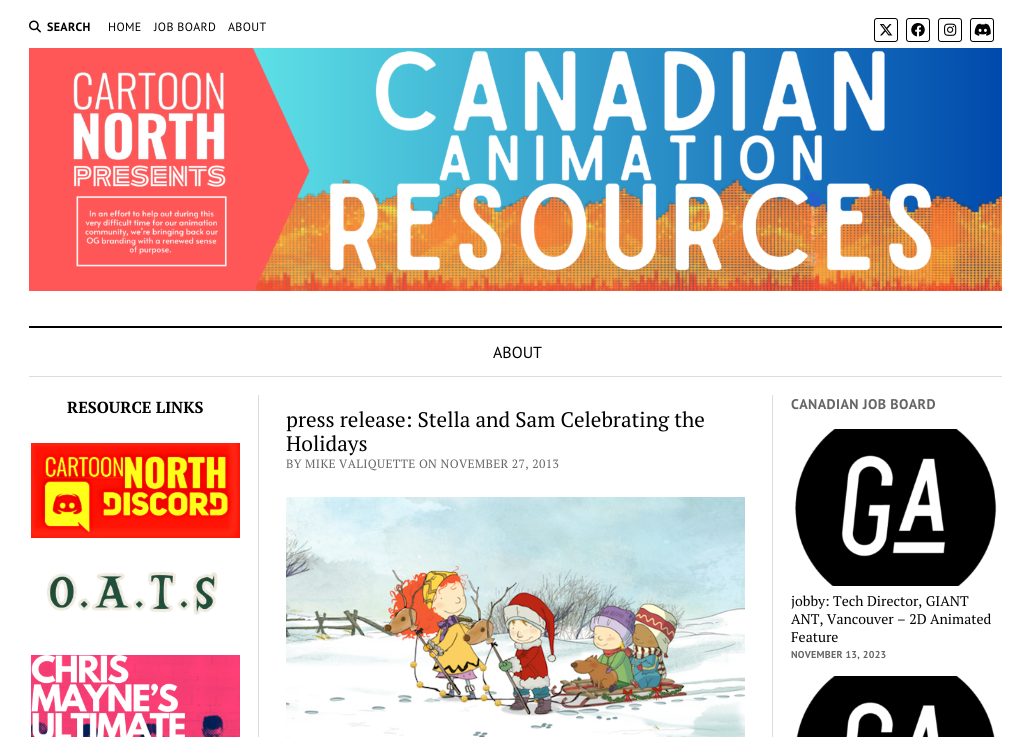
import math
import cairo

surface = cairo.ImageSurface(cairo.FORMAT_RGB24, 1031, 737)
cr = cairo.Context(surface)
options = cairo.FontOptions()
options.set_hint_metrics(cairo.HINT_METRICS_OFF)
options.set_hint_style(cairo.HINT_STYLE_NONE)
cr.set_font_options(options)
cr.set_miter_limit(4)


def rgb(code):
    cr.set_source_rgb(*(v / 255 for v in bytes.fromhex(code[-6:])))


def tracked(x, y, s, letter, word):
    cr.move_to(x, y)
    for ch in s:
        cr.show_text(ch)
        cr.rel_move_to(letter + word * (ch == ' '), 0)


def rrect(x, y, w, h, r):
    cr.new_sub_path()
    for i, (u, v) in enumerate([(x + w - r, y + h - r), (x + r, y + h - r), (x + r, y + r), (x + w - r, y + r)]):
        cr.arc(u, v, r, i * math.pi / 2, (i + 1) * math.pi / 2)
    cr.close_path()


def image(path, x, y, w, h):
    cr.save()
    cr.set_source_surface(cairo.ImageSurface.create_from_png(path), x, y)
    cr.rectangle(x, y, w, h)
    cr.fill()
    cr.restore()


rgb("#ffffff")
cr.paint()
image("img/1.png", 29, 20, 12, 13)
rrect(874.5, 18.5, 23, 23, 2.5)
rgb("#000000")
cr.set_line_width(1)
cr.stroke()
image("img/2.png", 879, 24, 14, 12)
rrect(906.5, 18.5, 23, 23, 2.5)
cr.stroke()
image("img/3.png", 911, 23, 14, 14)
rrect(938.5, 18.5, 23, 23, 2.5)
cr.stroke()
image("img/4.png", 944, 23, 13, 13)
rrect(970.5, 18.5, 23, 23, 2.5)
cr.stroke()
image("img/5.png", 974, 23, 17, 13)
image("img/6.png", 29, 48, 973, 243)
for x, y, w, h, color in [
    (29, 326, 973, 2, "#000000"),
    (29, 376, 973, 1, "#dcdcdc"),
    (258, 395, 1, 342, "#dcdcdc"),
    (772, 395, 1, 342, "#dcdcdc"),
]:
    rgb(color)
    cr.rectangle(x, y, w, h)
    cr.fill()
image("img/7.png", 31, 443, 209, 95)
image("img/8.png", 46, 571, 172, 44)
image("img/9.png", 31, 655, 209, 82)
image("img/10.png", 795, 429, 202, 157)
image("img/11.png", 796, 676, 199, 61)
image("img/12.png", 286, 497, 459, 240)
cr.select_font_face("PT Sans", cairo.FONT_SLANT_NORMAL, cairo.FONT_WEIGHT_BOLD)
cr.set_font_size(12)
rgb("#000000")
tracked(47, 31, "SEARCH", 0.35, 0)
cr.select_font_face("PT Sans")
for x, y, s in [
    (108, 31, "HOME"),
    (154, 31, "JOB BOARD"),
    (228, 31, "ABOUT"),
]:
    tracked(x, y, s, 0.35, 0)
cr.set_font_size(16)
cr.move_to(493, 358)
cr.show_text("ABOUT")
cr.select_font_face("PT Serif", cairo.FONT_SLANT_NORMAL, cairo.FONT_WEIGHT_BOLD)
cr.move_to(67, 413)
cr.show_text("RESOURCE LINKS")
cr.select_font_face("PT Sans", cairo.FONT_SLANT_NORMAL, cairo.FONT_WEIGHT_BOLD)
cr.set_font_size(14)
rgb("#666666")
tracked(791, 409, "CANADIAN JOB BOARD", 0.4, 0)
cr.select_font_face("PT Serif")
rgb("#000000")
for x, y, s in [
    (791, 606, "jobby: Tech Director, GIANT"),
    (791, 624, "ANT, Vancouver – 2D Animated"),
    (791, 642, "Feature"),
]:
    cr.move_to(x, y)
    cr.show_text(s)
cr.select_font_face("PT Sans", cairo.FONT_SLANT_NORMAL, cairo.FONT_WEIGHT_BOLD)
cr.set_font_size(10)
rgb("#666666")
tracked(791, 658, "NOVEMBER 13, 2023", 0.25, 0)
cr.select_font_face("PT Serif")
cr.set_font_size(21)
rgb("#000000")
cr.move_to(286, 427)
cr.show_text("press release: Stella and Sam Celebrating the")
cr.move_to(286, 451)
cr.show_text("Holidays")
cr.set_font_size(12)
rgb("#666666")
tracked(286, 468, "BY MIKE VALIQUETTE ON NOVEMBER 27, 2013", 0.35, 0)
surface.write_to_png("page.png")
